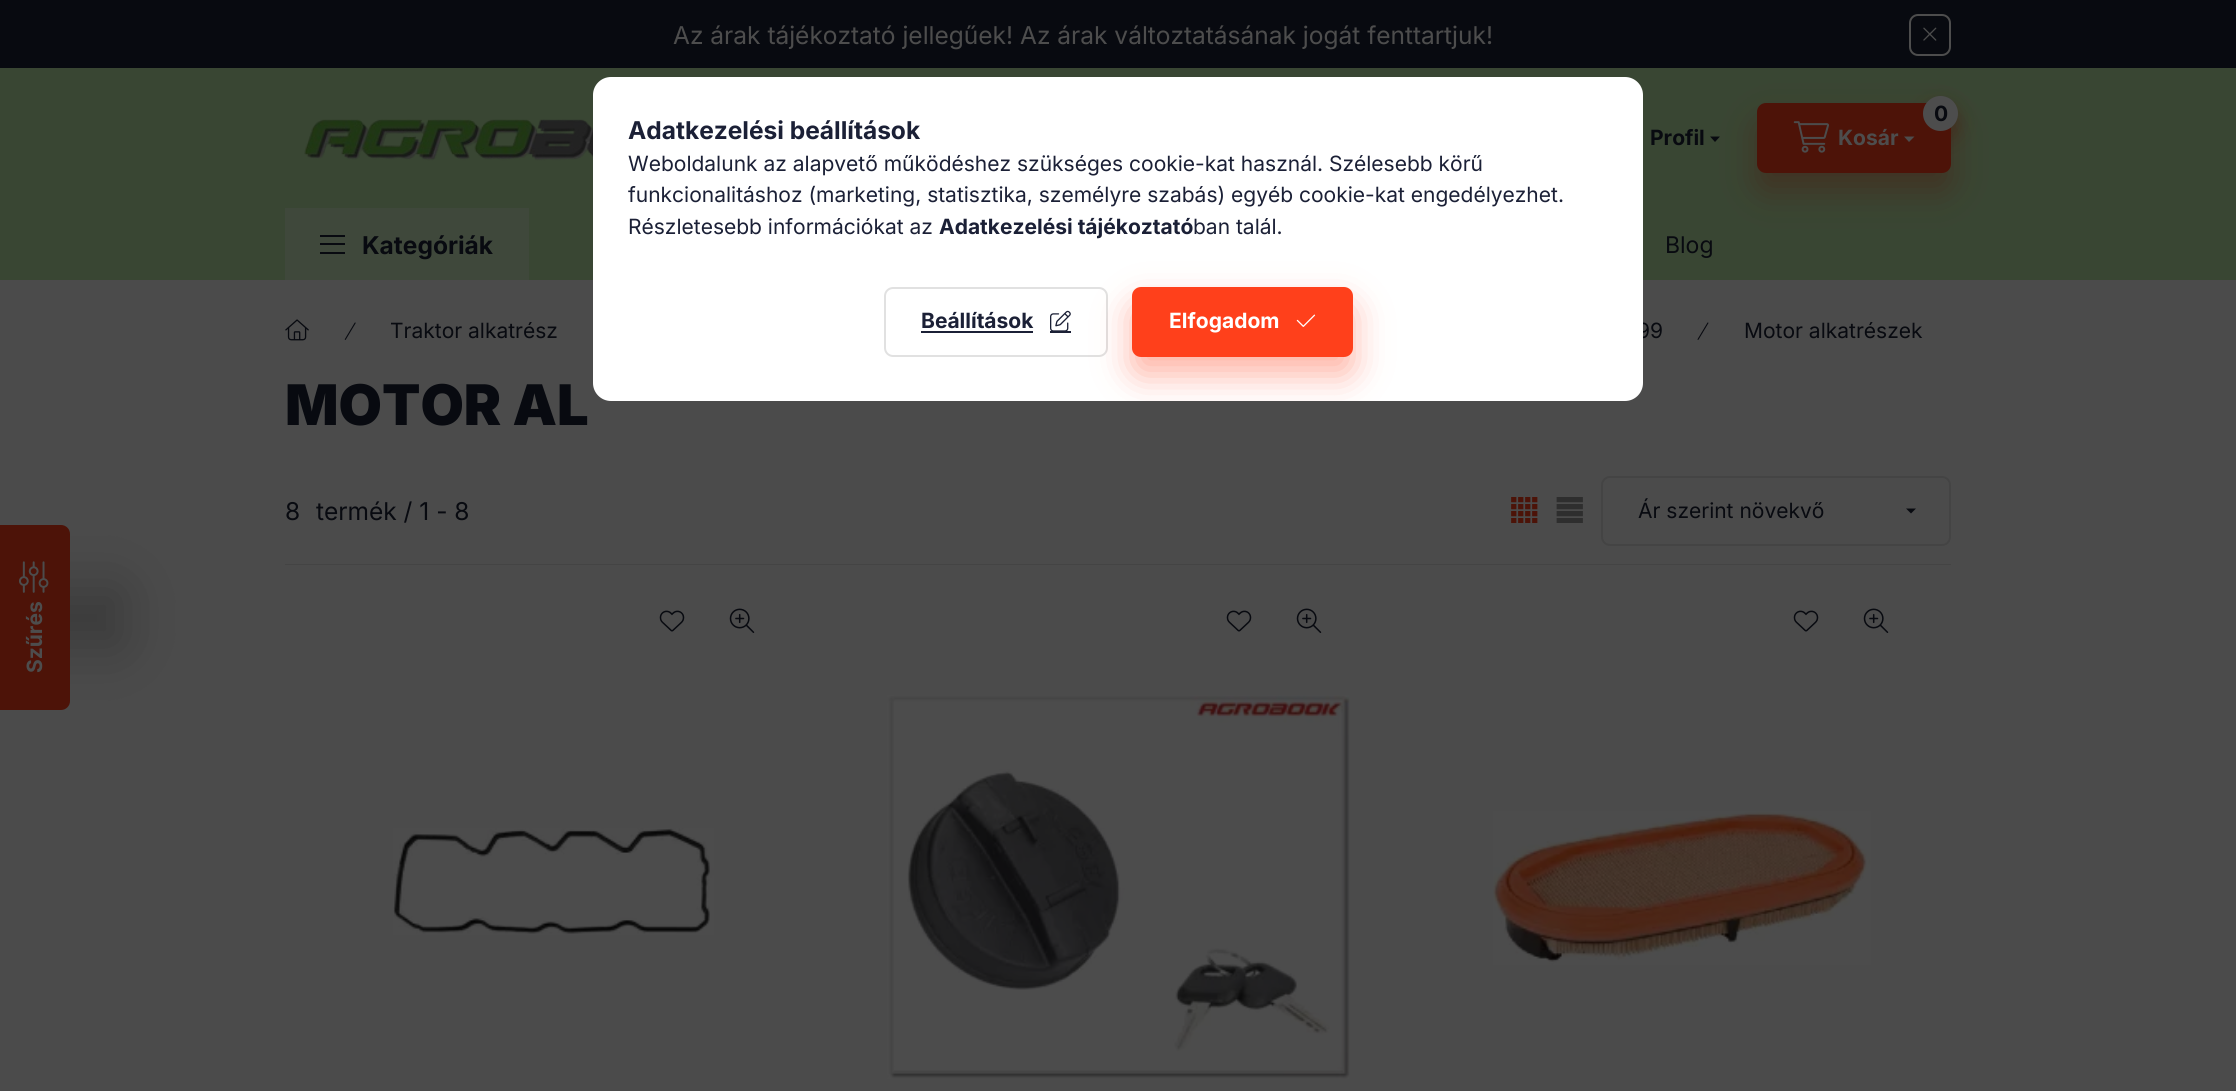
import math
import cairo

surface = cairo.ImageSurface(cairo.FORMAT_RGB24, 2236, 1091)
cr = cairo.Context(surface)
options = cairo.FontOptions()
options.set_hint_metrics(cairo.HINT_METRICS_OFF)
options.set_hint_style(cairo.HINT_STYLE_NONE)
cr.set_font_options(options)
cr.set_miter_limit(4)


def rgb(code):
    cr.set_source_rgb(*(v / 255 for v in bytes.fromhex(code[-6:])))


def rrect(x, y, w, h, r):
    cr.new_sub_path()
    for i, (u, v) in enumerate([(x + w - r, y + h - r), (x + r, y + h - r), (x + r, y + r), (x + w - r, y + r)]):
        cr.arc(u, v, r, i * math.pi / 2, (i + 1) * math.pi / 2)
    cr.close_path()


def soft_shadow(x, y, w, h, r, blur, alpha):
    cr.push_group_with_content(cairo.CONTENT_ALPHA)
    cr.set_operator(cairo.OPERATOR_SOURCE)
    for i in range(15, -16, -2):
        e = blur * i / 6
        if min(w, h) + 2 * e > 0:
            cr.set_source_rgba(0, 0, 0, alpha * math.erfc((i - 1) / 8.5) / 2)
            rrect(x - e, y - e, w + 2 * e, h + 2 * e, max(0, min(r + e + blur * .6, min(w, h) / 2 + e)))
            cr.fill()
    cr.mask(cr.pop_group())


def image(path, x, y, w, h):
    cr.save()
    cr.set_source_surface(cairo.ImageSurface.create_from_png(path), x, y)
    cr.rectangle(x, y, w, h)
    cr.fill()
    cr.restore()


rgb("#4b4b4b")
cr.paint()
rgb("#394633")
cr.rectangle(0, 68, 2236, 212)
cr.fill()
rgb("#4d1308")
soft_shadow(1757, 121, 194, 70, 9, 17.5, 0.4)
rgb("#080a10")
cr.rectangle(0, 0, 2236, 68)
cr.fill()
rrect(1910, 15, 40, 40, 8)
rgb("#4d4d4d")
cr.stroke()
image("img/1.png", 1923, 27, 14, 14)
image("img/2.png", 304, 119, 289, 42)
rgb("#080a10")
cr.new_path()
cr.move_to(1710, 136.5)
cr.line_to(1720, 136.5)
cr.line_to(1715, 142)
cr.close_path()
cr.fill()
rgb("#4d1308")
rrect(1757, 103, 194, 70, 9)
cr.fill()
rgb("#4d1308")
soft_shadow(1923, 105, 35, 35, 17.5, 9, 0.4)
rgb("#4d4d4d")
cr.arc(1940.5, 113.5, 17.5, 0, 2 * math.pi)
cr.fill()
image("img/3.png", 1793, 121, 36, 32)
cr.new_path()
cr.move_to(1904, 136.5)
cr.line_to(1914.5, 136.5)
cr.line_to(1909, 142)
cr.close_path()
cr.fill()
for x, y, w, h, color in [
    (285, 208, 244, 72, "#3f483b"),
    (320, 235, 25, 2, "#080a10"),
    (320, 243, 25, 2, "#080a10"),
    (320, 252, 25, 2, "#080a10"),
]:
    rgb(color)
    cr.rectangle(x, y, w, h)
    cr.fill()
image("img/4.png", 285, 319, 24, 22)
image("img/5.png", 344, 322, 12, 18)
image("img/6.png", 1697, 322, 12, 18)
rgb("#444444")
cr.rectangle(285, 564, 1666, 1)
cr.fill()
image("img/7.png", 1511, 497, 27, 26)
image("img/8.png", 1556, 497, 27, 26)
rrect(1602, 477, 348, 68, 8)
cr.stroke()
rgb("#080a10")
cr.new_path()
cr.move_to(1906, 508.5)
cr.line_to(1916, 508.5)
cr.line_to(1911, 513.5)
cr.close_path()
cr.fill()
image("img/9.png", 659, 610, 26, 22)
image("img/10.png", 729, 608, 26, 25)
image("img/11.png", 393, 828, 321, 107)
image("img/9.png", 1226, 610, 26, 22)
image("img/10.png", 1296, 608, 26, 25)
image("img/12.png", 887, 695, 463, 384)
image("img/9.png", 1793, 610, 26, 22)
image("img/10.png", 1863, 608, 26, 25)
image("img/13.png", 1493, 811, 378, 154)
rgb("#000000")
soft_shadow(-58, 583, 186, 70, 9, 26, 0.2)
rgb("#4d1308")
cr.new_path()
cr.move_to(0, 710)
cr.line_to(0, 525)
cr.line_to(61, 525)
cr.curve_to(66, 525, 70, 529, 70, 534)
cr.line_to(70, 701)
cr.curve_to(70, 706, 66, 710, 61, 710)
cr.close_path()
cr.fill()
image("img/14.png", 19, 561, 30, 32)
cr.select_font_face("Inter")
cr.set_font_size(24.5)
rgb("#4d4d4d")
cr.move_to(673, 44)
cr.show_text("Az árak tájékoztató jellegűek! Az árak változtatásának jogát fenttartjuk!")
cr.select_font_face("Inter", cairo.FONT_SLANT_NORMAL, cairo.FONT_WEIGHT_BOLD)
cr.set_font_size(21)
rgb("#080a10")
cr.move_to(1650, 145)
cr.show_text("Profil")
cr.move_to(1934, 121)
cr.show_text("0")
rgb("#4d4d4d")
cr.move_to(1838, 145)
cr.show_text("Kosár")
cr.set_font_size(24.5)
rgb("#080a10")
cr.move_to(362, 254)
cr.show_text("Kategóriák")
cr.select_font_face("Inter")
cr.set_font_size(23)
cr.move_to(1665, 253)
cr.show_text("Blog")
cr.set_font_size(21)
for x, y, s in [
    (390, 338, "Traktor alkatrész"),
    (1637, 338, "99"),
    (1744, 338, "Motor alkatrészek"),
]:
    cr.move_to(x, y)
    cr.show_text(s)
cr.select_font_face("Inter Black")
cr.set_font_size(56)
cr.move_to(285, 425)
cr.show_text("MOTOR AL")
cr.select_font_face("Inter")
cr.set_font_size(24.5)
cr.move_to(285, 520)
cr.show_text("8")
cr.move_to(316, 520)
cr.show_text("termék / 1 - 8")
cr.set_font_size(21)
cr.move_to(1638, 518)
cr.show_text("Ár szerint növekvő")
cr.select_font_face("Inter", cairo.FONT_SLANT_NORMAL, cairo.FONT_WEIGHT_BOLD)
rgb("#4d4d4d")
cr.save()
cr.translate(42, 673)
cr.rotate(-90 * math.pi / 180)
cr.move_to(0, 0)
cr.show_text("Szűrés")
cr.restore()
rgb("#ffffff")
rrect(593, 77, 1050, 324, 18)
cr.fill()
cr.set_font_size(24.5)
rgb("#1b2036")
cr.move_to(628, 139)
cr.show_text("Adatkezelési beállítások")
cr.select_font_face("Inter")
cr.set_font_size(21)
for x, y, s in [
    (628, 171, "Weboldalunk az alapvető működéshez szükséges cookie-kat használ. Szélesebb körű"),
    (628, 202, "funkcionalitáshoz (marketing, statisztika, személyre szabás) egyéb cookie-kat engedélyezhet."),
    (628, 234, "Részletesebb információkat az"),
]:
    cr.move_to(x, y)
    cr.show_text(s)
cr.select_font_face("Inter", cairo.FONT_SLANT_NORMAL, cairo.FONT_WEIGHT_BOLD)
cr.move_to(939, 234)
cr.show_text("Adatkezelési tájékoztató")
cr.select_font_face("Inter")
cr.move_to(1193, 234)
cr.show_text("ban talál.")
rrect(885, 288, 222, 68, 8)
rgb("#e1e1e1")
cr.stroke()
cr.select_font_face("Inter", cairo.FONT_SLANT_NORMAL, cairo.FONT_WEIGHT_BOLD)
rgb("#1b2036")
cr.move_to(921, 328)
cr.show_text("Beállítások")
cr.rectangle(921, 331, 112, 2)
cr.fill()
image("img/15.png", 1050, 310, 21, 21)
cr.rectangle(1050, 331, 21, 2)
cr.fill()
cr.save()
rrect(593, 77, 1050, 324, 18)
cr.clip()
rgb("#ff401b")
soft_shadow(1132, 305, 221, 70, 9, 17.5, 0.4)
cr.restore()
rgb("#ff401b")
rrect(1133, 288, 219, 68, 8)
cr.fill_preserve()
cr.stroke()
rgb("#ffffff")
cr.move_to(1169, 328)
cr.show_text("Elfogadom")
image("img/16.png", 1296, 314, 20, 13)
surface.write_to_png("page.png")
